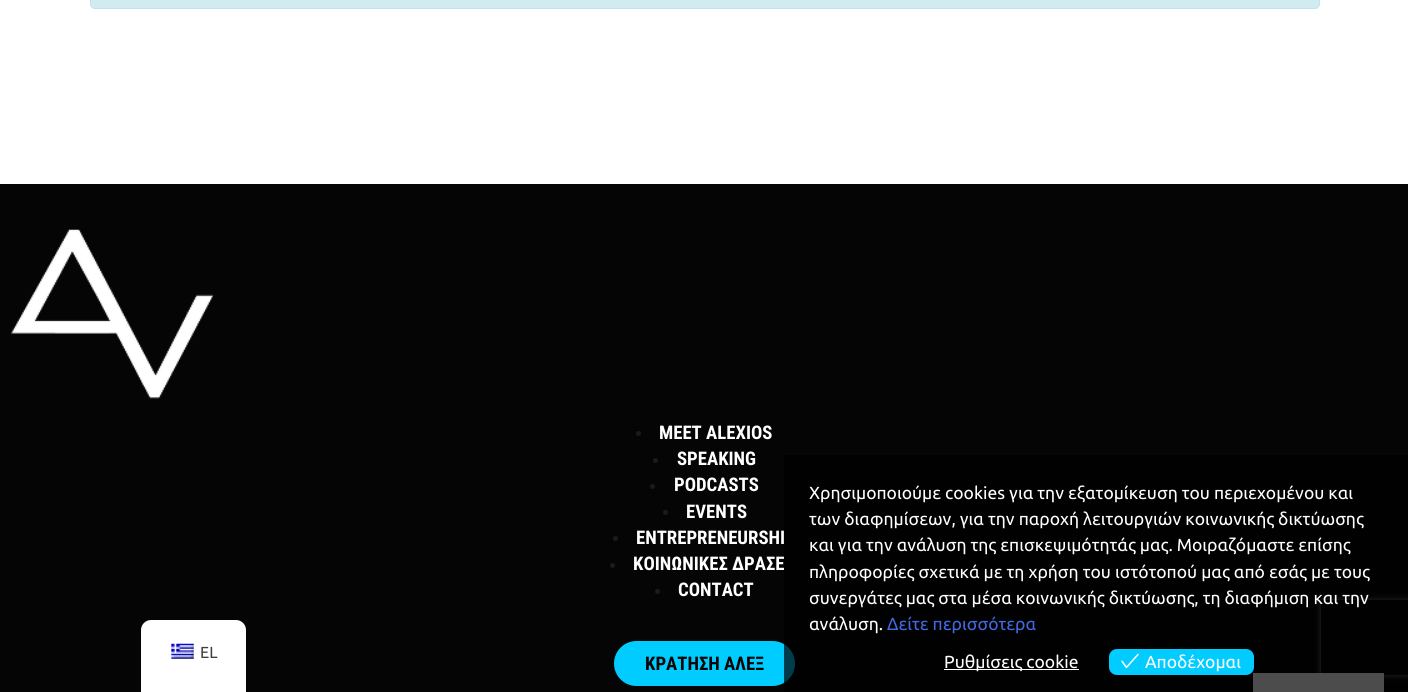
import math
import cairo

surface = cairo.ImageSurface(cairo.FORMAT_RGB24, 1408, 692)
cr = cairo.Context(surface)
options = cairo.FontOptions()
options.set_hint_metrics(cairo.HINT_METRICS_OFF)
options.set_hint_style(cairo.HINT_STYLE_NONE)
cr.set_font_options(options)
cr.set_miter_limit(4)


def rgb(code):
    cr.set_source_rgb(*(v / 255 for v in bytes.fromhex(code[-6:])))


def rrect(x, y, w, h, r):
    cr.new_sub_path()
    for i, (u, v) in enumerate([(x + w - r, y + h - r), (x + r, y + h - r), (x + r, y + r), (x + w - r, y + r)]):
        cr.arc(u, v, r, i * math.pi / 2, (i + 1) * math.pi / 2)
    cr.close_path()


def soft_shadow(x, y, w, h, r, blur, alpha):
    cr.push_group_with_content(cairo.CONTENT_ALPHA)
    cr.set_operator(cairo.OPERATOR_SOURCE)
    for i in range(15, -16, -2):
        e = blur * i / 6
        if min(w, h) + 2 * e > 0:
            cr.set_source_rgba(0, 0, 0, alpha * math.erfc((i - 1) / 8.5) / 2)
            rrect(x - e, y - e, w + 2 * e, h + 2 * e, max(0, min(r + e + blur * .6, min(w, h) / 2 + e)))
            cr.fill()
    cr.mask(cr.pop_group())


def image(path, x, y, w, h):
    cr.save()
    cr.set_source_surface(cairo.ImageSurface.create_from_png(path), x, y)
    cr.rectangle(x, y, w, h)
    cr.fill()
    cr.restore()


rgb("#ffffff")
cr.paint()
rgb("#d1ecf1")
rrect(90.5, -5.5, 1229, 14, 4.5)
cr.fill_preserve()
rgb("#bee5eb")
cr.set_line_width(1)
cr.stroke()
rgb("#050505")
cr.rectangle(0, 184, 1408, 508)
cr.fill()
image("img/1.png", 11, 229, 203, 170)
rgb("#191b1d")
cr.arc(638.5, 433.5, 2.5, 0, 2 * math.pi)
cr.fill()
cr.arc(655.5, 460.5, 2.5, 0, 2 * math.pi)
cr.fill()
cr.arc(652.5, 486.5, 2.5, 0, 2 * math.pi)
cr.fill()
cr.arc(665.5, 512.5, 2.5, 0, 2 * math.pi)
cr.fill()
cr.arc(615.5, 538.5, 2.5, 0, 2 * math.pi)
cr.fill()
cr.arc(612.5, 565.5, 2.5, 0, 2 * math.pi)
cr.fill()
cr.arc(657.5, 591.5, 2.5, 0, 2 * math.pi)
cr.fill()
rgb("#00ccff")
rrect(614, 641, 181, 45, 22.5)
cr.fill()
rgb("#ffffff")
cr.new_path()
cr.move_to(151, 620)
cr.line_to(236, 620)
cr.curve_to(241.5, 620, 246, 624.5, 246, 630)
cr.line_to(246, 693)
cr.line_to(141, 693)
cr.line_to(141, 630)
cr.curve_to(141, 624.5, 145.5, 620, 151, 620)
cr.close_path()
cr.fill()
image("img/3.png", 171, 643, 23, 16)
cr.save()
cr.set_fill_rule(cairo.FILL_RULE_EVEN_ODD)
cr.new_path()
cr.move_to(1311, 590)
cr.line_to(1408, 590)
cr.line_to(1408, 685)
cr.line_to(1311, 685)
cr.close_path()
cr.move_to(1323.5, 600)
cr.line_to(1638.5, 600)
cr.curve_to(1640, 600, 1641, 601, 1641, 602.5)
cr.line_to(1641, 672.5)
cr.curve_to(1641, 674, 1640, 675, 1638.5, 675)
cr.line_to(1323.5, 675)
cr.curve_to(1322, 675, 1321, 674, 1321, 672.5)
cr.line_to(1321, 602.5)
cr.curve_to(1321, 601, 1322, 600, 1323.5, 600)
cr.close_path()
cr.clip()
rgb("#808080")
soft_shadow(1321, 600, 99, 75, 2.5, 3, 1)
cr.restore()
cr.rectangle(1253, 673, 131, 19)
cr.fill()
cr.select_font_face("Roboto Condensed", cairo.FONT_SLANT_NORMAL, cairo.FONT_WEIGHT_BOLD)
cr.set_font_size(18.75)
for x, y, s in [
    (659, 439, "MEET ALEXIOS"),
    (677, 465, "SPEAKING"),
    (674, 491, "PODCASTS"),
    (686, 518, "EVENTS"),
    (636, 544, "ENTREPRENEURSHI"),
    (633, 570, "ΚΟΙΝΩΝΙΚΕΣ ΔΡΑΣΕ"),
    (678, 596, "CONTACT"),
]:
    cr.move_to(x, y)
    cr.show_text(s)
rgb("#040404")
cr.move_to(645, 670)
cr.show_text("ΚΡΑΤΗΣΗ ΑΛΕΞ")
cr.set_source_rgba(0, 0, 0, 0.7)
cr.rectangle(784, 455, 624, 237)
cr.fill()
cr.select_font_face("Ubuntu")
cr.set_font_size(17.5)
rgb("#ffffff")
for x, y, s in [
    (809, 499, "Χρησιμοποιούμε cookies για την εξατομίκευση του περιεχομένου και"),
    (809, 525, "των διαφημίσεων, για την παροχή λειτουργιών κοινωνικής δικτύωσης"),
    (809, 551, "και για την ανάλυση της επισκεψιμότητάς μας. Μοιραζόμαστε επίσης"),
    (809, 578, "πληροφορίες σχετικά με τη χρήση του ιστότοπού μας από εσάς με τους"),
    (809, 604, "συνεργάτες μας στα μέσα κοινωνικής δικτύωσης, τη διαφήμιση και την"),
    (809, 630, "ανάλυση."),
]:
    cr.move_to(x, y)
    cr.show_text(s)
rgb("#4169e1")
cr.move_to(887, 630)
cr.show_text("Δείτε περισσότερα")
rgb("#ffffff")
cr.rectangle(944, 669, 135, 1)
cr.fill()
cr.move_to(944, 668)
cr.show_text("Ρυθμίσεις cookie")
rgb("#01ccff")
rrect(1109, 649, 145, 26, 8)
cr.fill()
image("img/2.png", 1121, 653, 18, 16)
rgb("#ffffff")
cr.move_to(1145, 668)
cr.show_text("Αποδέχομαι")
cr.set_font_size(16)
rgb("#404040")
cr.move_to(200, 658)
cr.show_text("EL")
surface.write_to_png("page.png")
